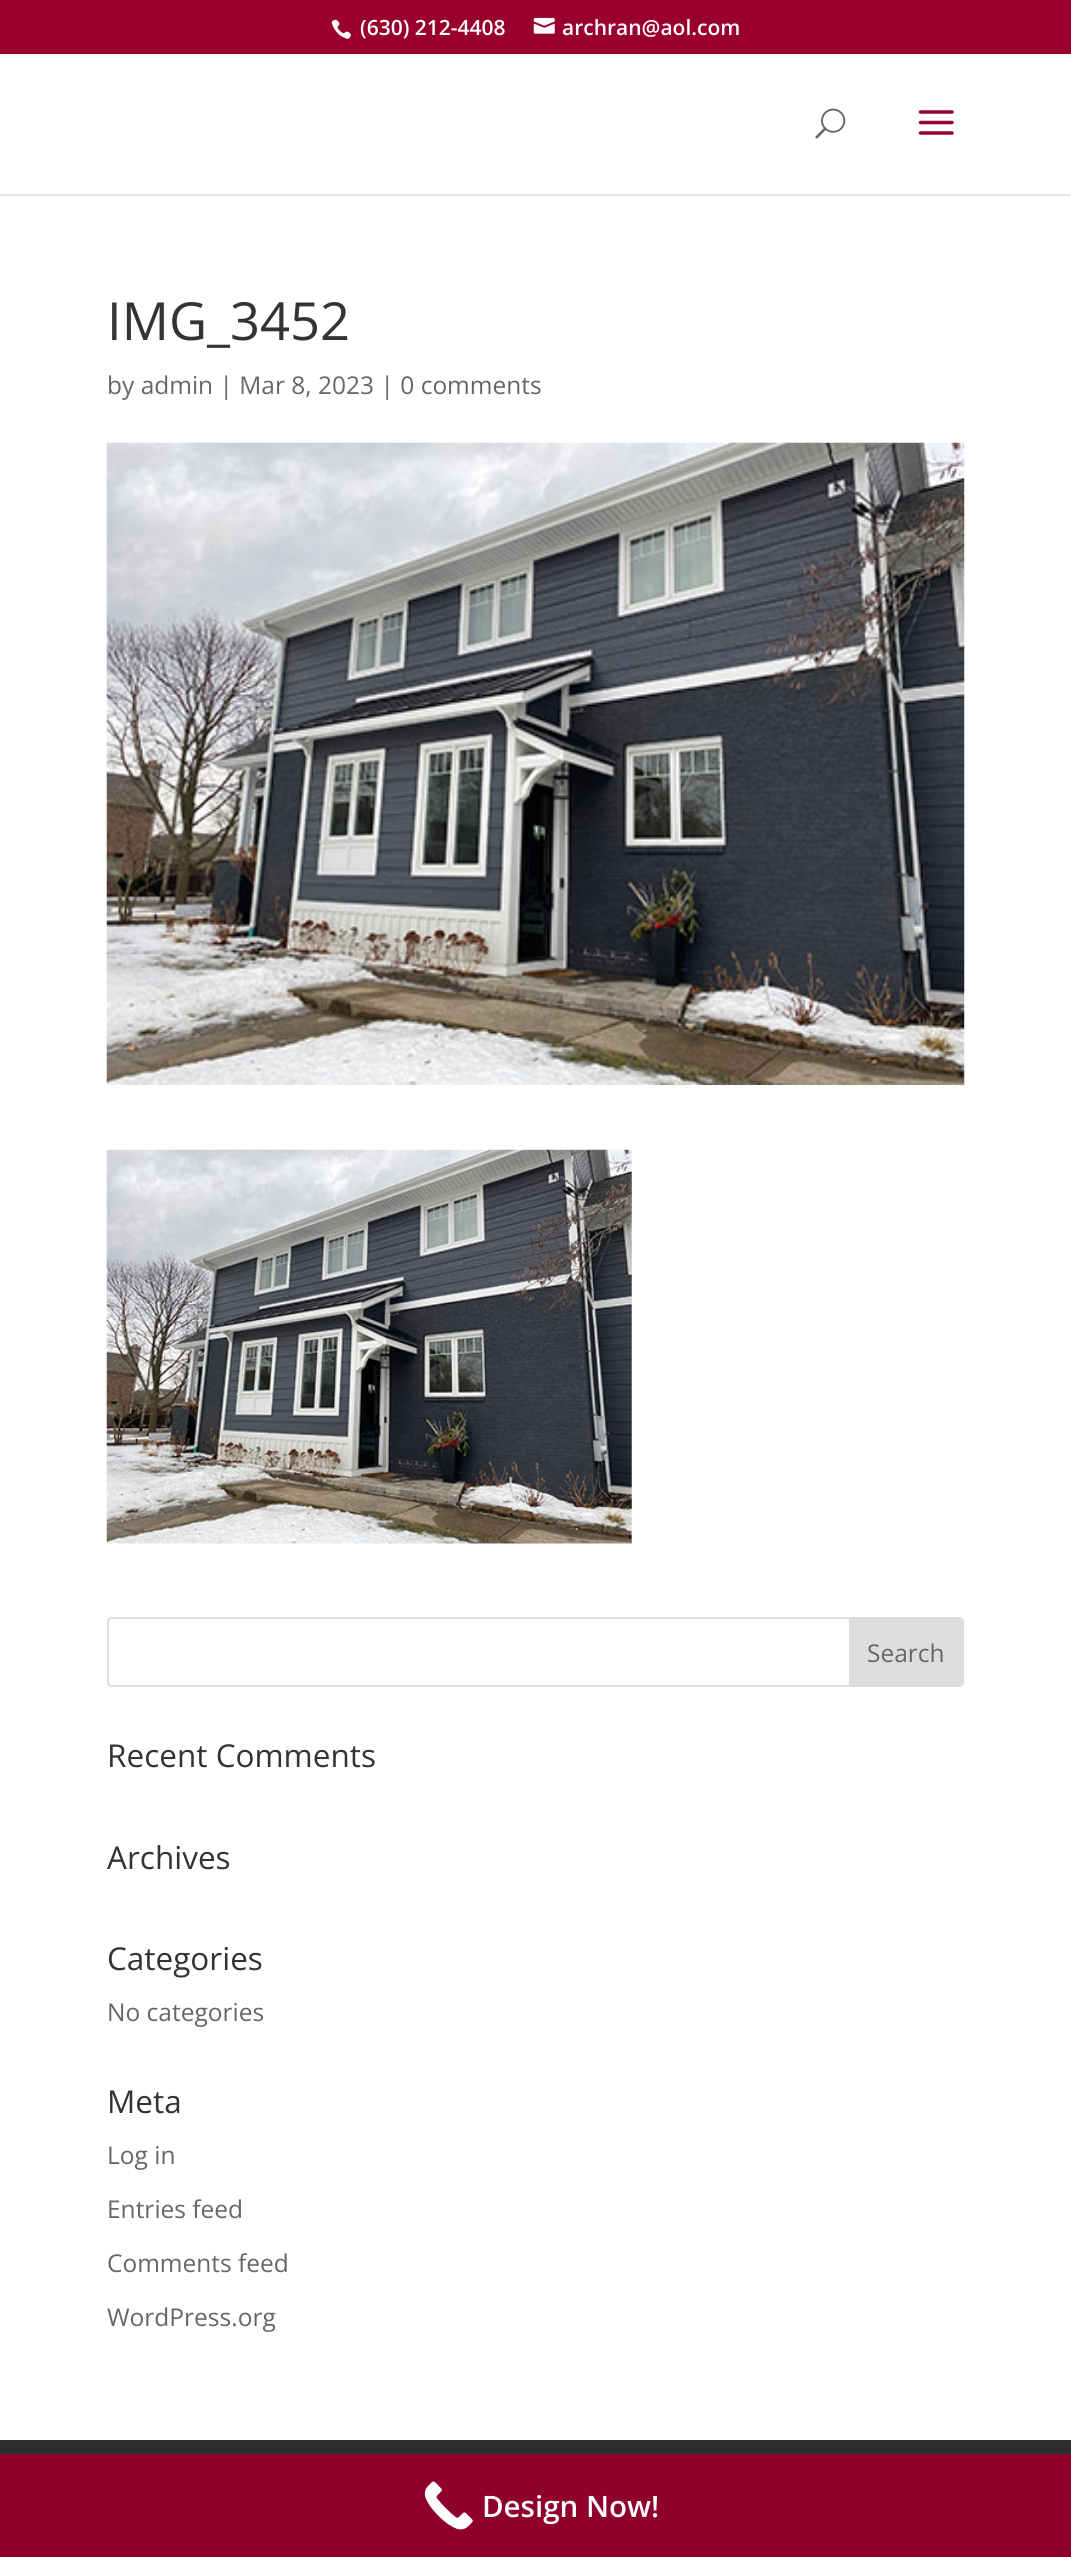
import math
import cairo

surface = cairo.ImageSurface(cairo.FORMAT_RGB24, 1071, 2557)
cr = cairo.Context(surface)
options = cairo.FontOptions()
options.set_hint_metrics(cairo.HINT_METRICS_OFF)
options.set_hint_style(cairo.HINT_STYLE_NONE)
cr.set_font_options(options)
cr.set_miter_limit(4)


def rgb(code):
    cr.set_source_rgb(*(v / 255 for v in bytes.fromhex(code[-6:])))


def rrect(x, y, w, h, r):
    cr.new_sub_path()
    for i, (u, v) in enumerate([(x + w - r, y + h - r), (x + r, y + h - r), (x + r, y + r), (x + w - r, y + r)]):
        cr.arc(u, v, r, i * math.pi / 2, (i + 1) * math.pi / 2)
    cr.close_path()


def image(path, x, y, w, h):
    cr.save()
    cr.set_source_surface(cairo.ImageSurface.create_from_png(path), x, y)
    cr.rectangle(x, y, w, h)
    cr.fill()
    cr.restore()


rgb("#99002f")
cr.paint()
image("img/1.png", 331, 19, 20, 20)
image("img/2.png", 533, 17, 22, 17)
rgb("#e6e6e6")
cr.rectangle(0, 194, 1071, 2)
cr.fill()
rgb("#ffffff")
cr.rectangle(0, 54, 1071, 140)
cr.fill()
image("img/3.png", 815, 108, 31, 31)
image("img/4.png", 918, 110, 36, 25)
cr.rectangle(0, 196, 1071, 2244)
cr.fill()
image("img/5.png", 106, 442, 859, 643)
image("img/6.png", 106, 1149, 526, 395)
rrect(108, 1618, 855, 68, 4)
rgb("#dddddd")
cr.stroke()
cr.new_path()
cr.move_to(850, 1618)
cr.line_to(959, 1618)
cr.curve_to(961, 1618, 963, 1620, 963, 1622)
cr.line_to(963, 1682)
cr.curve_to(963, 1684, 961, 1686, 959, 1686)
cr.line_to(850, 1686)
cr.close_path()
cr.fill_preserve()
cr.stroke()
rgb("#2d2d2d")
cr.rectangle(0, 2440, 1071, 14)
cr.fill()
rgb("#8f002d")
cr.rectangle(0, 2454, 1071, 103)
cr.fill()
image("img/7.png", 424, 2481, 49, 49)
cr.select_font_face("Open Sans SemiBold")
cr.set_font_size(21)
rgb("#ffffff")
cr.move_to(360, 35)
cr.show_text("(630) 212-4408")
cr.move_to(562, 35)
cr.show_text("archran@aol.com")
cr.select_font_face("Open Sans")
cr.set_font_size(52.5)
rgb("#333333")
cr.move_to(107, 340)
cr.show_text("IMG_3452")
cr.set_font_size(24.5)
rgb("#666666")
cr.move_to(107, 394)
cr.show_text("by admin | Mar 8, 2023 | 0 comments")
cr.move_to(867, 1662)
cr.show_text("Search")
cr.set_font_size(31.5)
rgb("#333333")
for x, y, s in [
    (107, 1767, "Recent Comments"),
    (107, 1869, "Archives"),
    (107, 1970, "Categories"),
]:
    cr.move_to(x, y)
    cr.show_text(s)
cr.set_font_size(24.5)
rgb("#666666")
cr.move_to(107, 2021)
cr.show_text("No categories")
cr.set_font_size(31.5)
rgb("#333333")
cr.move_to(107, 2113)
cr.show_text("Meta")
cr.set_font_size(24.5)
rgb("#666666")
for x, y, s in [
    (107, 2164, "Log in"),
    (107, 2218, "Entries feed"),
    (107, 2272, "Comments feed"),
    (107, 2326, "WordPress.org"),
]:
    cr.move_to(x, y)
    cr.show_text(s)
cr.select_font_face("Open Sans SemiBold")
cr.set_font_size(29.5)
rgb("#ffffff")
cr.move_to(482, 2517)
cr.show_text("Design Now!")
surface.write_to_png("page.png")
